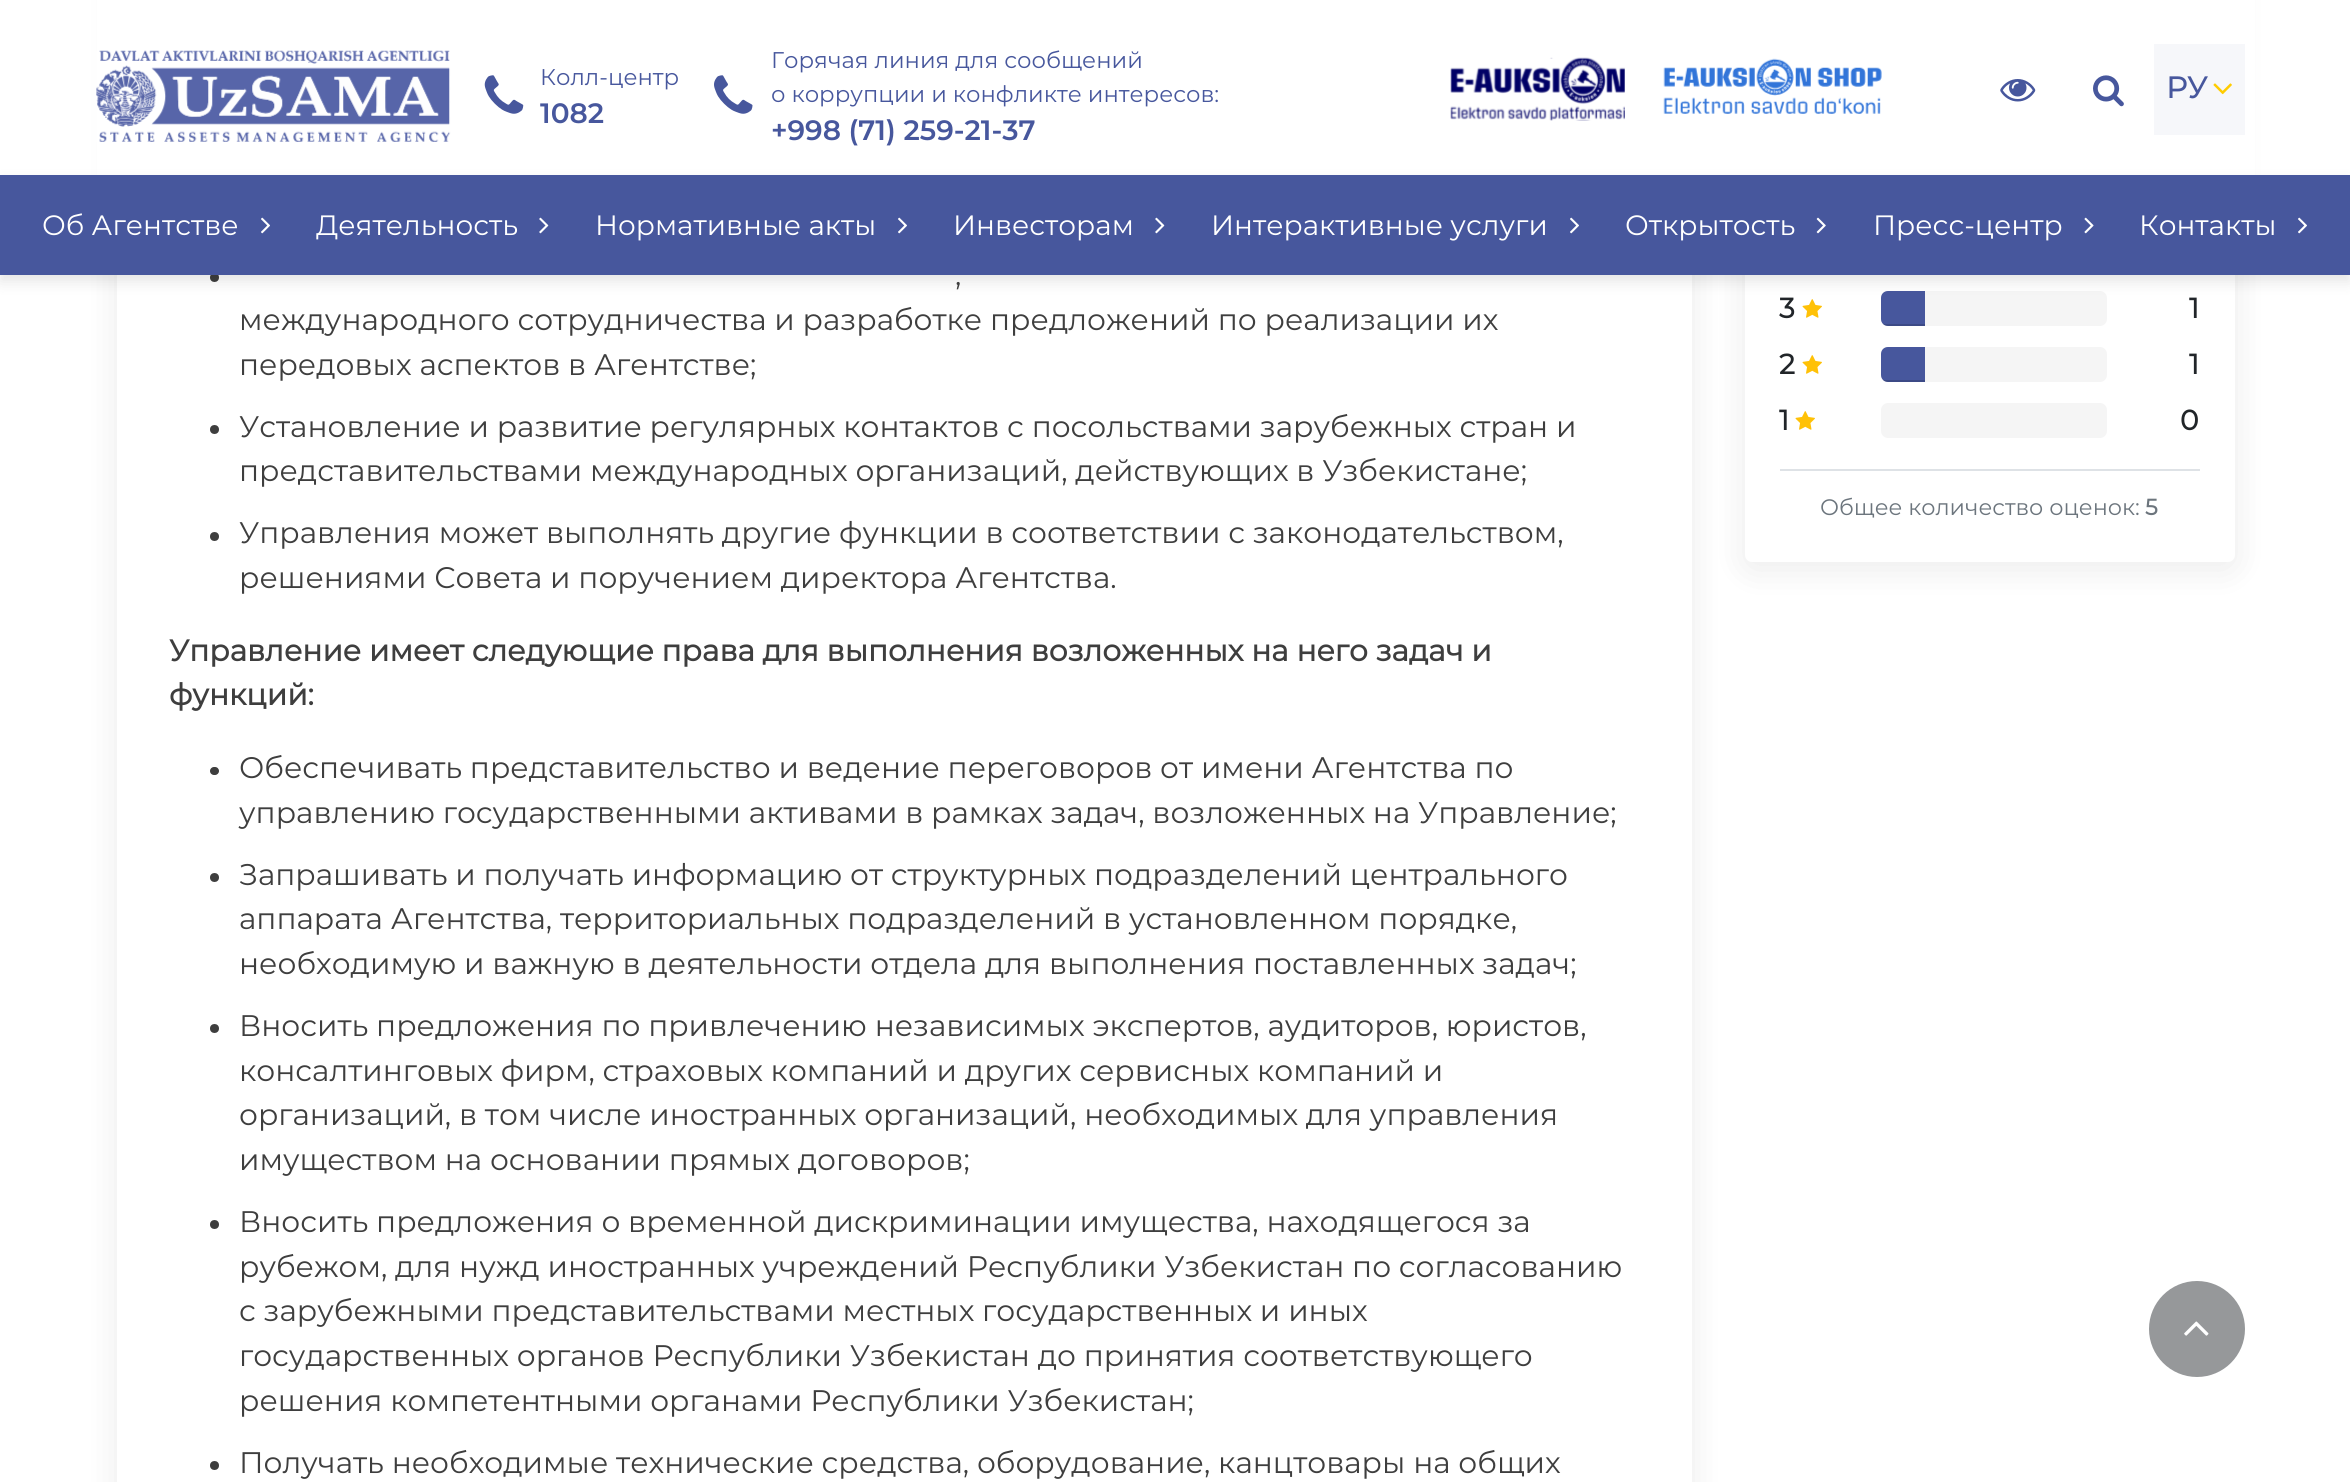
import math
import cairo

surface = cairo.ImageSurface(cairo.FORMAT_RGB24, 2350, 1482)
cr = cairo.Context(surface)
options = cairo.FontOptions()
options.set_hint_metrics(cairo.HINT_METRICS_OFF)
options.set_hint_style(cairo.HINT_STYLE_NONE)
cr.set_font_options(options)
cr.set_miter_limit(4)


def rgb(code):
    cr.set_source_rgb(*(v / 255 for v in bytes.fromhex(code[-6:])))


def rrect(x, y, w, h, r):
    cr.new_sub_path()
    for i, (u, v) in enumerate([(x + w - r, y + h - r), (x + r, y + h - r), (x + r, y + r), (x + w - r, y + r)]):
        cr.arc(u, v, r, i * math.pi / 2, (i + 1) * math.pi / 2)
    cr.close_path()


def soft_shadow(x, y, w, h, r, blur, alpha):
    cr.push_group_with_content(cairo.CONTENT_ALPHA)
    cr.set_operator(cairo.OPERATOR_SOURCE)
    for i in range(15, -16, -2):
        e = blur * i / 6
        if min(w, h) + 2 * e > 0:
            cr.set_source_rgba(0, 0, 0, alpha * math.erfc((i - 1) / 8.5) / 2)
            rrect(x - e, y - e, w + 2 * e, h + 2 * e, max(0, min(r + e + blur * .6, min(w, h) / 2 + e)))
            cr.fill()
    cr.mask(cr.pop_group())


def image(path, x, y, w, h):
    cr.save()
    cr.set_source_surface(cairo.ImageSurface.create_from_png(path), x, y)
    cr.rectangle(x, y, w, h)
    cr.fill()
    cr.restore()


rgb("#ffffff")
cr.paint()
rgb("#000000")
soft_shadow(117, -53, 1575, 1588, 0, 17.5, 0.08)
rgb("#ffffff")
cr.rectangle(117, 275, 1575, 1207)
cr.fill()
rgb("#000000")
soft_shadow(1745, -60, 490, 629, 7, 17.5, 0.08)
rgb("#ffffff")
rrect(1745, -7, 490, 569, 7)
cr.fill()
cr.rectangle(97, 0, 2158, 175)
cr.fill()
image("img/1.png", 96, 50, 355, 92)
image("img/2.png", 484, 75, 40, 39)
image("img/3.png", 714, 75, 39, 39)
image("img/4.png", 1450, 57, 175, 64)
image("img/5.png", 1663, 58, 219, 56)
image("img/6.png", 2000, 79, 36, 23)
image("img/7.png", 2093, 75, 31, 32)
rgb("#f6f7fa")
cr.rectangle(2154, 44, 91, 91)
cr.fill()
image("img/8.png", 2213, 83, 19, 12)
rgb("#3e3e3e")
cr.arc(214.5, 277.5, 4.5, 0, 2 * math.pi)
cr.fill()
image("img/13.png", 1802, 299, 20, 19)
rgb("#f5f5f5")
rrect(1881, 291, 226, 35, 7)
cr.fill()
rgb("#47579d")
cr.new_path()
cr.move_to(1888, 291)
cr.line_to(1925, 291)
cr.line_to(1925, 326)
cr.line_to(1888, 326)
cr.curve_to(1884, 326, 1881, 323, 1881, 319)
cr.line_to(1881, 298)
cr.curve_to(1881, 294, 1884, 291, 1888, 291)
cr.close_path()
cr.fill()
rgb("#000000")
soft_shadow(0, 182, 2350, 100, 0, 7, 0.1)
rgb("#47579d")
cr.rectangle(0, 175, 2350, 100)
cr.fill()
image("img/9.png", 261, 217, 9, 17)
image("img/10.png", 539, 217, 10, 17)
image("img/9.png", 898, 217, 9, 17)
image("img/10.png", 1155, 217, 10, 17)
image("img/9.png", 1570, 217, 9, 17)
image("img/11.png", 1816, 217, 10, 17)
image("img/12.png", 2084, 217, 10, 17)
image("img/9.png", 2298, 217, 9, 17)
rgb("#3e3e3e")
cr.arc(214.5, 429.5, 4.5, 0, 2 * math.pi)
cr.fill()
cr.arc(214.5, 536.5, 4.5, 0, 2 * math.pi)
cr.fill()
rrect(210, 767, 9, 8, 4)
cr.fill()
cr.arc(214.5, 877.5, 4.5, 0, 2 * math.pi)
cr.fill()
cr.arc(214.5, 1028.5, 4.5, 0, 2 * math.pi)
cr.fill()
cr.arc(214.5, 1224.5, 4.5, 0, 2 * math.pi)
cr.fill()
cr.arc(214.5, 1465.5, 4.5, 0, 2 * math.pi)
cr.fill()
cr.save()
rrect(1881, 291, 226, 35, 7)
cr.clip()
cr.set_source_rgba(0, 0, 0, 0.15)
cr.rectangle(1881, 324, 44, 2)
cr.fill()
cr.restore()
image("img/13.png", 1802, 355, 20, 19)
rgb("#f5f5f5")
rrect(1881, 347, 226, 35, 7)
cr.fill()
rgb("#47579d")
cr.new_path()
cr.move_to(1888, 347)
cr.line_to(1925, 347)
cr.line_to(1925, 382)
cr.line_to(1888, 382)
cr.curve_to(1884, 382, 1881, 379, 1881, 375)
cr.line_to(1881, 354)
cr.curve_to(1881, 350, 1884, 347, 1888, 347)
cr.close_path()
cr.fill()
cr.save()
rrect(1881, 347, 226, 35, 7)
cr.clip()
cr.set_source_rgba(0, 0, 0, 0.15)
cr.rectangle(1881, 380, 44, 2)
cr.fill()
cr.restore()
image("img/13.png", 1795, 411, 20, 19)
rgb("#f5f5f5")
rrect(1881, 403, 226, 35, 7)
cr.fill()
rgb("#dee2e6")
cr.rectangle(1780, 469, 420, 2)
cr.fill()
rgb("#96989a")
cr.arc(2197, 1329, 48, 0, 2 * math.pi)
cr.fill()
image("img/14.png", 2184, 1321, 25, 15)
cr.select_font_face("Montserrat")
cr.set_font_size(22.75)
rgb("#47579d")
cr.move_to(540, 85)
cr.show_text("Колл-центр")
cr.select_font_face("Montserrat SemiBold")
cr.set_font_size(28)
cr.move_to(540, 123)
cr.show_text("1082")
cr.select_font_face("Montserrat")
cr.set_font_size(22.75)
cr.move_to(771, 68)
cr.show_text("Горячая линия для сообщений")
cr.move_to(771, 102)
cr.show_text("о коррупции и конфликте интересов:")
cr.select_font_face("Montserrat SemiBold")
cr.set_font_size(28)
cr.move_to(771, 140)
cr.show_text("+998 (71) 259-21-37")
cr.select_font_face("Montserrat", cairo.FONT_SLANT_NORMAL, cairo.FONT_WEIGHT_BOLD)
cr.set_font_size(29.75)
cr.move_to(2166, 98)
cr.show_text("РУ")
cr.select_font_face("Montserrat")
cr.set_font_size(28)
rgb("#ffffff")
for x, y, s in [
    (42, 235, "Об Агентстве"),
    (316, 235, "Деятельность"),
    (595, 235, "Нормативные акты"),
    (953, 235, "Инвесторам"),
    (1211, 235, "Интерактивные услуги"),
    (1625, 235, "Открытость"),
    (1873, 235, "Пресс-центр"),
    (2139, 235, "Контакты"),
]:
    cr.move_to(x, y)
    cr.show_text(s)
cr.set_font_size(29.75)
rgb("#3e3e3e")
for x, y, s in [
    (955, 285, ","),
    (239, 330, "международного сотрудничества и разработке предложений по реализации их"),
    (239, 375, "передовых аспектов в Агентстве;"),
    (239, 437, "Установление и развитие регулярных контактов с посольствами зарубежных стран и"),
    (239, 481, "представительствами международных организаций, действующих в Узбекистане;"),
    (239, 543, "Управления может выполнять другие функции в соответствии с законодательством,"),
    (239, 588, "решениями Совета и поручением директора Агентства."),
]:
    cr.move_to(x, y)
    cr.show_text(s)
cr.select_font_face("Montserrat", cairo.FONT_SLANT_NORMAL, cairo.FONT_WEIGHT_BOLD)
cr.move_to(169, 661)
cr.show_text("Управление имеет следующие права для выполнения возложенных на него задач и")
cr.move_to(169, 705)
cr.show_text("функций:")
cr.select_font_face("Montserrat")
for x, y, s in [
    (239, 778, "Обеспечивать представительство и ведение переговоров от имени Агентства по"),
    (239, 823, "управлению государственными активами в рамках задач, возложенных на Управление;"),
    (239, 885, "Запрашивать и получать информацию от структурных подразделений центрального"),
    (239, 929, "аппарата Агентства, территориальных подразделений в установленном порядке,"),
    (239, 974, "необходимую и важную в деятельности отдела для выполнения поставленных задач;"),
    (239, 1036, "Вносить предложения по привлечению независимых экспертов, аудиторов, юристов,"),
    (239, 1081, "консалтинговых фирм, страховых компаний и других сервисных компаний и"),
    (239, 1125, "организаций, в том числе иностранных организаций, необходимых для управления"),
    (239, 1170, "имуществом на основании прямых договоров;"),
    (239, 1232, "Вносить предложения о временной дискриминации имущества, находящегося за"),
    (239, 1277, "рубежом, для нужд иностранных учреждений Республики Узбекистан по согласованию"),
    (239, 1321, "с зарубежными представительствами местных государственных и иных"),
    (239, 1366, "государственных органов Республики Узбекистан до принятия соответствующего"),
    (239, 1411, "решения компетентными органами Республики Узбекистан;"),
    (239, 1473, "Получать необходимые технические средства, оборудование, канцтовары на общих"),
]:
    cr.move_to(x, y)
    cr.show_text(s)
cr.select_font_face("Montserrat", cairo.FONT_SLANT_NORMAL, cairo.FONT_WEIGHT_BOLD)
cr.set_font_size(28)
rgb("#212529")
for x, y, s in [
    (1779, 318, "3"),
    (2189, 318, "1"),
    (1779, 374, "2"),
    (2189, 374, "1"),
    (1779, 430, "1"),
    (2180, 430, "0"),
]:
    cr.move_to(x, y)
    cr.show_text(s)
cr.select_font_face("Montserrat")
cr.set_font_size(22.4)
rgb("#6c757d")
cr.move_to(1820, 515)
cr.show_text("Общее количество оценок:")
cr.select_font_face("Montserrat", cairo.FONT_SLANT_NORMAL, cairo.FONT_WEIGHT_BOLD)
cr.move_to(2145, 515)
cr.show_text("5")
surface.write_to_png("page.png")
